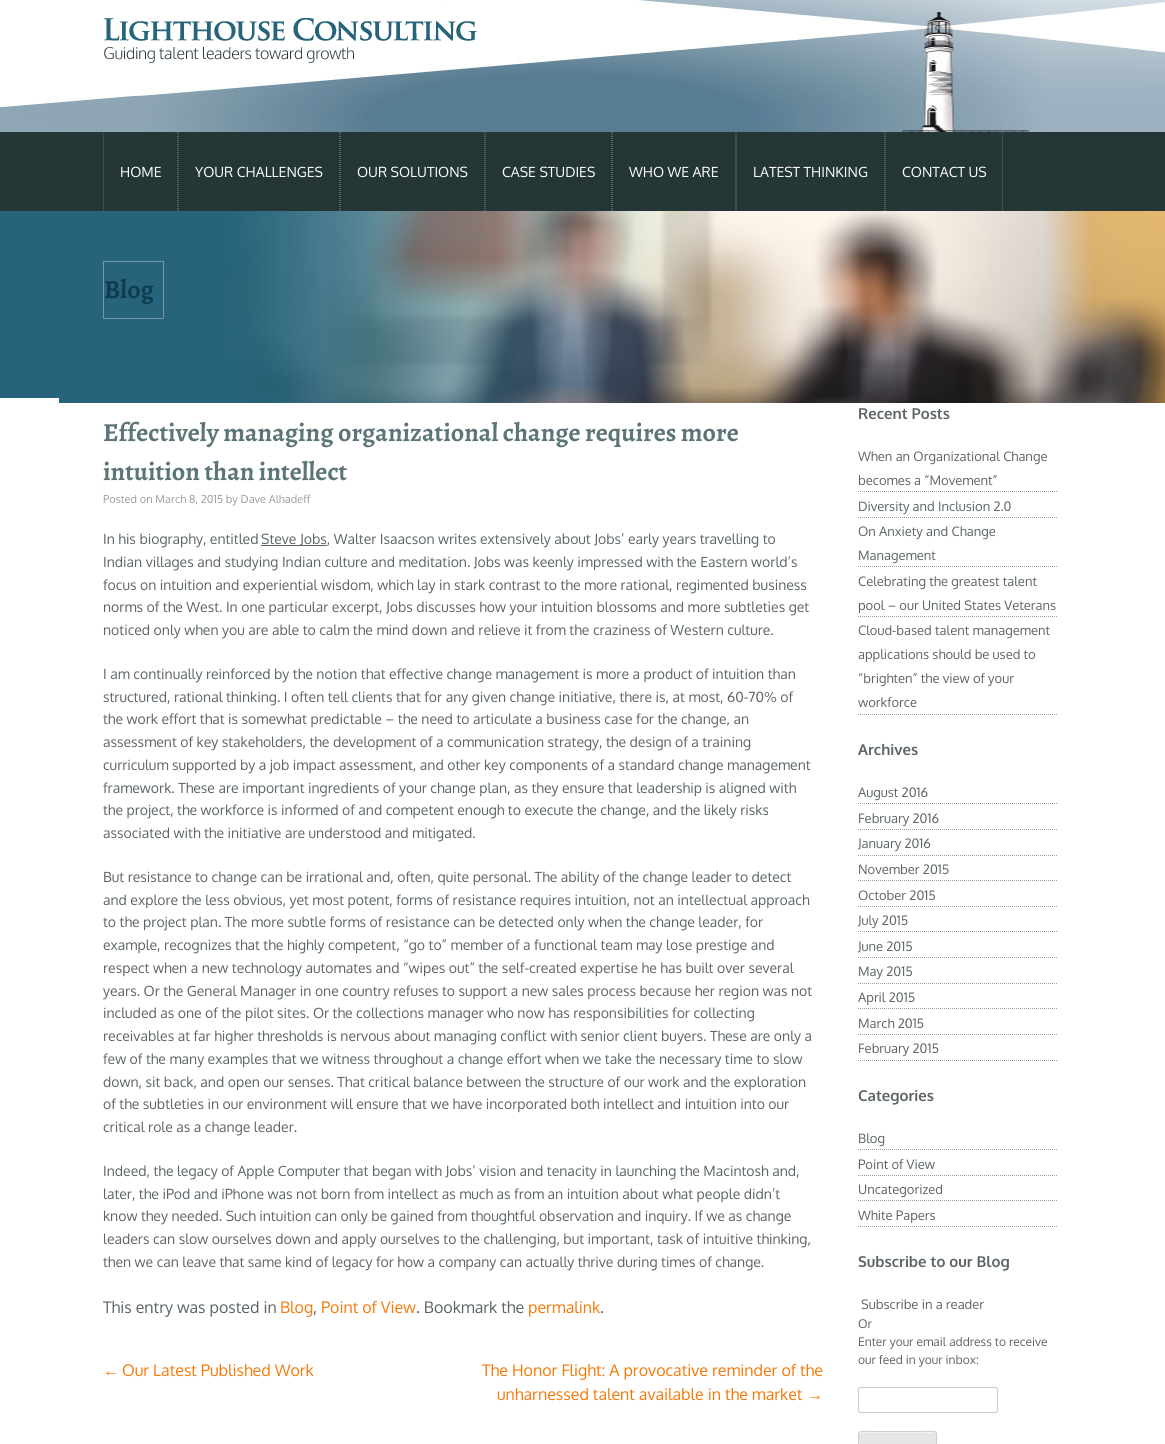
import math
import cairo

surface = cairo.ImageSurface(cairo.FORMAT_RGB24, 1165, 1444)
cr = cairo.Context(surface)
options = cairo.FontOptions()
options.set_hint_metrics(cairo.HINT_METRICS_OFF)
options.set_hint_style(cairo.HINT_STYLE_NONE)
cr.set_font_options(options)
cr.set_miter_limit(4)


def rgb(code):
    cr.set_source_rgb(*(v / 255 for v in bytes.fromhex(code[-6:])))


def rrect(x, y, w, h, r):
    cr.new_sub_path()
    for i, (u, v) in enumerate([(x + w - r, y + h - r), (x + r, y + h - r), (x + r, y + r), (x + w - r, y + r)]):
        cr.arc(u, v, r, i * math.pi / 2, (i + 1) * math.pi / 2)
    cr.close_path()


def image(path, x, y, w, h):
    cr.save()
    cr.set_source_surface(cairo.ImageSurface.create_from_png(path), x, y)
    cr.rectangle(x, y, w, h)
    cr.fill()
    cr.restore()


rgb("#ffffff")
cr.paint()
image("img/1.png", 0, 0, 1165, 132)
image("img/2.png", 104, 6, 373, 57)
rgb("#253637")
cr.rectangle(0, 132, 1165, 79)
cr.fill()
cr.new_path()
cr.move_to(177.5, 132)
cr.line_to(177.5, 211)
rgb("#536566")
cr.set_line_width(1)
cr.set_dash([1, 1])
cr.stroke()
cr.new_path()
cr.move_to(103.5, 132)
cr.line_to(103.5, 211)
cr.stroke()
cr.new_path()
cr.move_to(339.5, 132)
cr.line_to(339.5, 211)
cr.stroke()
cr.new_path()
cr.move_to(178.5, 132)
cr.line_to(178.5, 211)
cr.stroke()
cr.new_path()
cr.move_to(484.5, 132)
cr.line_to(484.5, 211)
cr.stroke()
cr.new_path()
cr.move_to(340.5, 132)
cr.line_to(340.5, 211)
cr.stroke()
cr.new_path()
cr.move_to(611.5, 132)
cr.line_to(611.5, 211)
cr.stroke()
cr.new_path()
cr.move_to(485.5, 132)
cr.line_to(485.5, 211)
cr.stroke()
cr.new_path()
cr.move_to(735.5, 132)
cr.line_to(735.5, 211)
cr.stroke()
cr.new_path()
cr.move_to(612.5, 132)
cr.line_to(612.5, 211)
cr.stroke()
cr.new_path()
cr.move_to(884.5, 132)
cr.line_to(884.5, 211)
cr.stroke()
cr.new_path()
cr.move_to(736.5, 132)
cr.line_to(736.5, 211)
cr.stroke()
cr.new_path()
cr.move_to(1002.5, 132)
cr.line_to(1002.5, 211)
cr.stroke()
cr.new_path()
cr.move_to(885.5, 132)
cr.line_to(885.5, 211)
cr.stroke()
image("img/3.png", 0, 211, 1165, 192)
cr.rectangle(103.5, 261.5, 60, 57)
rgb("#7895a7")
cr.set_dash([])
cr.stroke()
rgb("#ffffff")
cr.rectangle(0, 398, 59, 5)
cr.fill()
rgb("#5c6465")
cr.rectangle(261, 545, 66, 1)
cr.fill()
cr.new_path()
cr.move_to(858, 491.5)
cr.line_to(1058, 491.5)
rgb("#93a1a2")
cr.set_dash([1, 1])
cr.stroke()
cr.new_path()
cr.move_to(858, 517.5)
cr.line_to(1058, 517.5)
cr.stroke()
cr.new_path()
cr.move_to(858, 566.5)
cr.line_to(1058, 566.5)
cr.stroke()
cr.new_path()
cr.move_to(858, 616.5)
cr.line_to(1058, 616.5)
cr.stroke()
cr.new_path()
cr.move_to(858, 714.5)
cr.line_to(1058, 714.5)
cr.stroke()
cr.new_path()
cr.move_to(858, 803.5)
cr.line_to(1058, 803.5)
cr.stroke()
cr.new_path()
cr.move_to(858, 829.5)
cr.line_to(1058, 829.5)
cr.stroke()
cr.new_path()
cr.move_to(858, 855.5)
cr.line_to(1058, 855.5)
cr.stroke()
cr.new_path()
cr.move_to(858, 880.5)
cr.line_to(1058, 880.5)
cr.stroke()
cr.new_path()
cr.move_to(858, 906.5)
cr.line_to(1058, 906.5)
cr.stroke()
cr.new_path()
cr.move_to(858, 931.5)
cr.line_to(1058, 931.5)
cr.stroke()
cr.new_path()
cr.move_to(858, 957.5)
cr.line_to(1058, 957.5)
cr.stroke()
cr.new_path()
cr.move_to(858, 983.5)
cr.line_to(1058, 983.5)
cr.stroke()
cr.new_path()
cr.move_to(858, 1008.5)
cr.line_to(1058, 1008.5)
cr.stroke()
cr.new_path()
cr.move_to(858, 1034.5)
cr.line_to(1058, 1034.5)
cr.stroke()
cr.new_path()
cr.move_to(858, 1060.5)
cr.line_to(1058, 1060.5)
cr.stroke()
cr.new_path()
cr.move_to(858, 1149.5)
cr.line_to(1058, 1149.5)
cr.stroke()
cr.new_path()
cr.move_to(858, 1175.5)
cr.line_to(1058, 1175.5)
cr.stroke()
cr.new_path()
cr.move_to(858, 1200.5)
cr.line_to(1058, 1200.5)
cr.stroke()
cr.new_path()
cr.move_to(858, 1226.5)
cr.line_to(1058, 1226.5)
cr.stroke()
rrect(858.5, 1387.5, 139, 25, 2.5)
rgb("#cccccc")
cr.set_dash([])
cr.stroke()
rgb("#e6e6e6")
rrect(858, 1431, 79, 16, 3)
cr.fill()
rgb("#f3f3f3")
cr.new_path()
cr.move_to(861, 1433)
cr.line_to(934, 1433)
cr.curve_to(935, 1433, 936, 1434, 936, 1435)
cr.curve_to(936, 1429, 925, 1432, 922, 1432)
cr.line_to(873, 1432)
cr.curve_to(870, 1432, 859, 1429, 859, 1435)
cr.curve_to(859, 1434, 860, 1433, 861, 1433)
cr.close_path()
cr.fill()
cr.new_path()
cr.move_to(859, 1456)
cr.curve_to(857.5, 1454, 858.5, 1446.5, 858.5, 1444)
cr.curve_to(858.5, 1428.5, 856.5, 1431.5, 873, 1431.5)
cr.line_to(922, 1431.5)
cr.curve_to(940, 1431.5, 936.5, 1429, 936.5, 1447.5)
cr.curve_to(936.5, 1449.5, 937.5, 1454, 936, 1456)
rgb("#cccccc")
cr.stroke()
cr.select_font_face("Oxygen")
cr.set_font_size(14)
rgb("#ffffff")
for x, y, s in [
    (120, 177, "HOME"),
    (195, 177, "YOUR CHALLENGES"),
    (357, 177, "OUR SOLUTIONS"),
    (502, 177, "CASE STUDIES"),
    (629, 177, "WHO WE ARE"),
    (753, 177, "LATEST THINKING"),
    (902, 177, "CONTACT US"),
]:
    cr.move_to(x, y)
    cr.show_text(s)
cr.select_font_face("Alegreya", cairo.FONT_SLANT_NORMAL, cairo.FONT_WEIGHT_BOLD)
cr.set_font_size(26)
rgb("#0d3e50")
cr.move_to(104, 298)
cr.show_text("Blog")
rgb("#5c7677")
cr.move_to(103, 441)
cr.show_text("Effectively managing organizational change requires more")
cr.move_to(103, 480)
cr.show_text("intuition than intellect")
cr.select_font_face("Oxygen")
cr.set_font_size(11)
rgb("#969d9e")
cr.move_to(103, 503)
cr.show_text("Posted on March 8, 2015 by Dave Alhadeff")
cr.set_font_size(14)
rgb("#5c6465")
for x, y, s in [
    (103, 544, "In his biography, entitled"),
    (261, 544, "Steve Jobs, Walter Isaacson writes extensively about Jobs’ early years travelling to"),
    (103, 567, "Indian villages and studying Indian culture and meditation. Jobs was keenly impressed with the Eastern world’s"),
    (103, 590, "focus on intuition and experiential wisdom, which lay in stark contrast to the more rational, regimented business"),
    (103, 612, "norms of the West. In one particular excerpt, Jobs discusses how your intuition blossoms and more subtleties get"),
    (103, 635, "noticed only when you are able to calm the mind down and relieve it from the craziness of Western culture."),
    (103, 679, "I am continually reinforced by the notion that effective change management is more a product of intuition than"),
    (103, 702, "structured, rational thinking. I often tell clients that for any given change initiative, there is, at most, 60-70% of"),
    (103, 724, "the work effort that is somewhat predictable – the need to articulate a business case for the change, an"),
    (103, 747, "assessment of key stakeholders, the development of a communication strategy, the design of a training"),
    (103, 770, "curriculum supported by a job impact assessment, and other key components of a standard change management"),
    (103, 793, "framework. These are important ingredients of your change plan, as they ensure that leadership is aligned with"),
    (103, 815, "the project, the workforce is informed of and competent enough to execute the change, and the likely risks"),
    (103, 838, "associated with the initiative are understood and mitigated."),
    (103, 882, "But resistance to change can be irrational and, often, quite personal. The ability of the change leader to detect"),
    (103, 905, "and explore the less obvious, yet most potent, forms of resistance requires intuition, not an intellectual approach"),
    (103, 927, "to the project plan. The more subtle forms of resistance can be detected only when the change leader, for"),
    (103, 950, "example, recognizes that the highly competent, “go to” member of a functional team may lose prestige and"),
    (103, 973, "respect when a new technology automates and “wipes out” the self-created expertise he has built over several"),
    (103, 996, "years. Or the General Manager in one country refuses to support a new sales process because her region was not"),
    (103, 1018, "included as one of the pilot sites. Or the collections manager who now has responsibilities for collecting"),
    (103, 1041, "receivables at far higher thresholds is nervous about managing conflict with senior client buyers. These are only a"),
    (103, 1064, "few of the many examples that we witness throughout a change effort when we take the necessary time to slow"),
    (103, 1087, "down, sit back, and open our senses. That critical balance between the structure of our work and the exploration"),
    (103, 1109, "of the subtleties in our environment will ensure that we have incorporated both intellect and intuition into our"),
    (103, 1132, "critical role as a change leader."),
    (103, 1176, "Indeed, the legacy of Apple Computer that began with Jobs’ vision and tenacity in launching the Macintosh and,"),
    (103, 1199, "later, the iPod and iPhone was not born from intellect as much as from an intuition about what people didn’t"),
    (103, 1221, "know they needed. Such intuition can only be gained from thoughtful observation and inquiry. If we as change"),
    (103, 1244, "leaders can slow ourselves down and apply ourselves to the challenging, but important, task of intuitive thinking,"),
    (103, 1267, "then we can leave that same kind of legacy for how a company can actually thrive during times of change."),
]:
    cr.move_to(x, y)
    cr.show_text(s)
cr.set_font_size(16)
cr.move_to(103, 1313)
cr.show_text("This entry was posted in")
rgb("#f67808")
cr.move_to(280, 1313)
cr.show_text("Blog")
rgb("#5c6465")
cr.move_to(313, 1313)
cr.show_text(",")
rgb("#f67808")
cr.move_to(321, 1313)
cr.show_text("Point of View")
rgb("#5c6465")
cr.move_to(416, 1313)
cr.show_text(". Bookmark the")
rgb("#f67808")
cr.move_to(528, 1313)
cr.show_text("permalink")
rgb("#5c6465")
cr.move_to(600, 1313)
cr.show_text(".")
cr.select_font_face("Liberation Sans")
rgb("#f67808")
cr.move_to(103, 1376)
cr.show_text("←")
cr.select_font_face("Oxygen")
for x, y, s in [
    (122, 1376, "Our Latest Published Work"),
    (482, 1376, "The Honor Flight: A provocative reminder of the"),
    (497, 1400, "unharnessed talent available in the market"),
]:
    cr.move_to(x, y)
    cr.show_text(s)
cr.select_font_face("Liberation Sans")
cr.move_to(807, 1400)
cr.show_text("→")
cr.select_font_face("Oxygen", cairo.FONT_SLANT_NORMAL, cairo.FONT_WEIGHT_BOLD)
cr.set_font_size(15)
rgb("#5c6465")
cr.move_to(858, 419)
cr.show_text("Recent Posts")
cr.select_font_face("Oxygen")
cr.set_font_size(13)
for x, y, s in [
    (858, 461, "When an Organizational Change"),
    (858, 485, "becomes a “Movement”"),
    (858, 511, "Diversity and Inclusion 2.0"),
    (858, 536, "On Anxiety and Change"),
    (858, 560, "Management"),
    (858, 586, "Celebrating the greatest talent"),
    (858, 610, "pool – our United States Veterans"),
    (858, 635, "Cloud-based talent management"),
    (858, 659, "applications should be used to"),
    (858, 683, "“brighten” the view of your"),
    (858, 707, "workforce"),
]:
    cr.move_to(x, y)
    cr.show_text(s)
cr.select_font_face("Oxygen", cairo.FONT_SLANT_NORMAL, cairo.FONT_WEIGHT_BOLD)
cr.set_font_size(15)
cr.move_to(858, 755)
cr.show_text("Archives")
cr.select_font_face("Oxygen")
cr.set_font_size(13)
for x, y, s in [
    (858, 797, "August 2016"),
    (858, 823, "February 2016"),
    (858, 848, "January 2016"),
    (858, 874, "November 2015"),
    (858, 900, "October 2015"),
    (858, 925, "July 2015"),
    (858, 951, "June 2015"),
    (858, 976, "May 2015"),
    (858, 1002, "April 2015"),
    (858, 1028, "March 2015"),
    (858, 1053, "February 2015"),
]:
    cr.move_to(x, y)
    cr.show_text(s)
cr.select_font_face("Oxygen", cairo.FONT_SLANT_NORMAL, cairo.FONT_WEIGHT_BOLD)
cr.set_font_size(15)
cr.move_to(858, 1101)
cr.show_text("Categories")
cr.select_font_face("Oxygen")
cr.set_font_size(13)
for x, y, s in [
    (858, 1143, "Blog"),
    (858, 1169, "Point of View"),
    (858, 1194, "Uncategorized"),
    (858, 1220, "White Papers"),
]:
    cr.move_to(x, y)
    cr.show_text(s)
cr.select_font_face("Oxygen", cairo.FONT_SLANT_NORMAL, cairo.FONT_WEIGHT_BOLD)
cr.set_font_size(15)
cr.move_to(858, 1267)
cr.show_text("Subscribe to our Blog")
cr.select_font_face("Oxygen")
cr.set_font_size(13)
cr.move_to(861, 1309)
cr.show_text("Subscribe in a reader")
cr.set_font_size(12)
for x, y, s in [
    (858, 1328, "Or"),
    (858, 1346, "Enter your email address to receive"),
    (858, 1364, "our feed in your inbox:"),
]:
    cr.move_to(x, y)
    cr.show_text(s)
surface.write_to_png("page.png")
